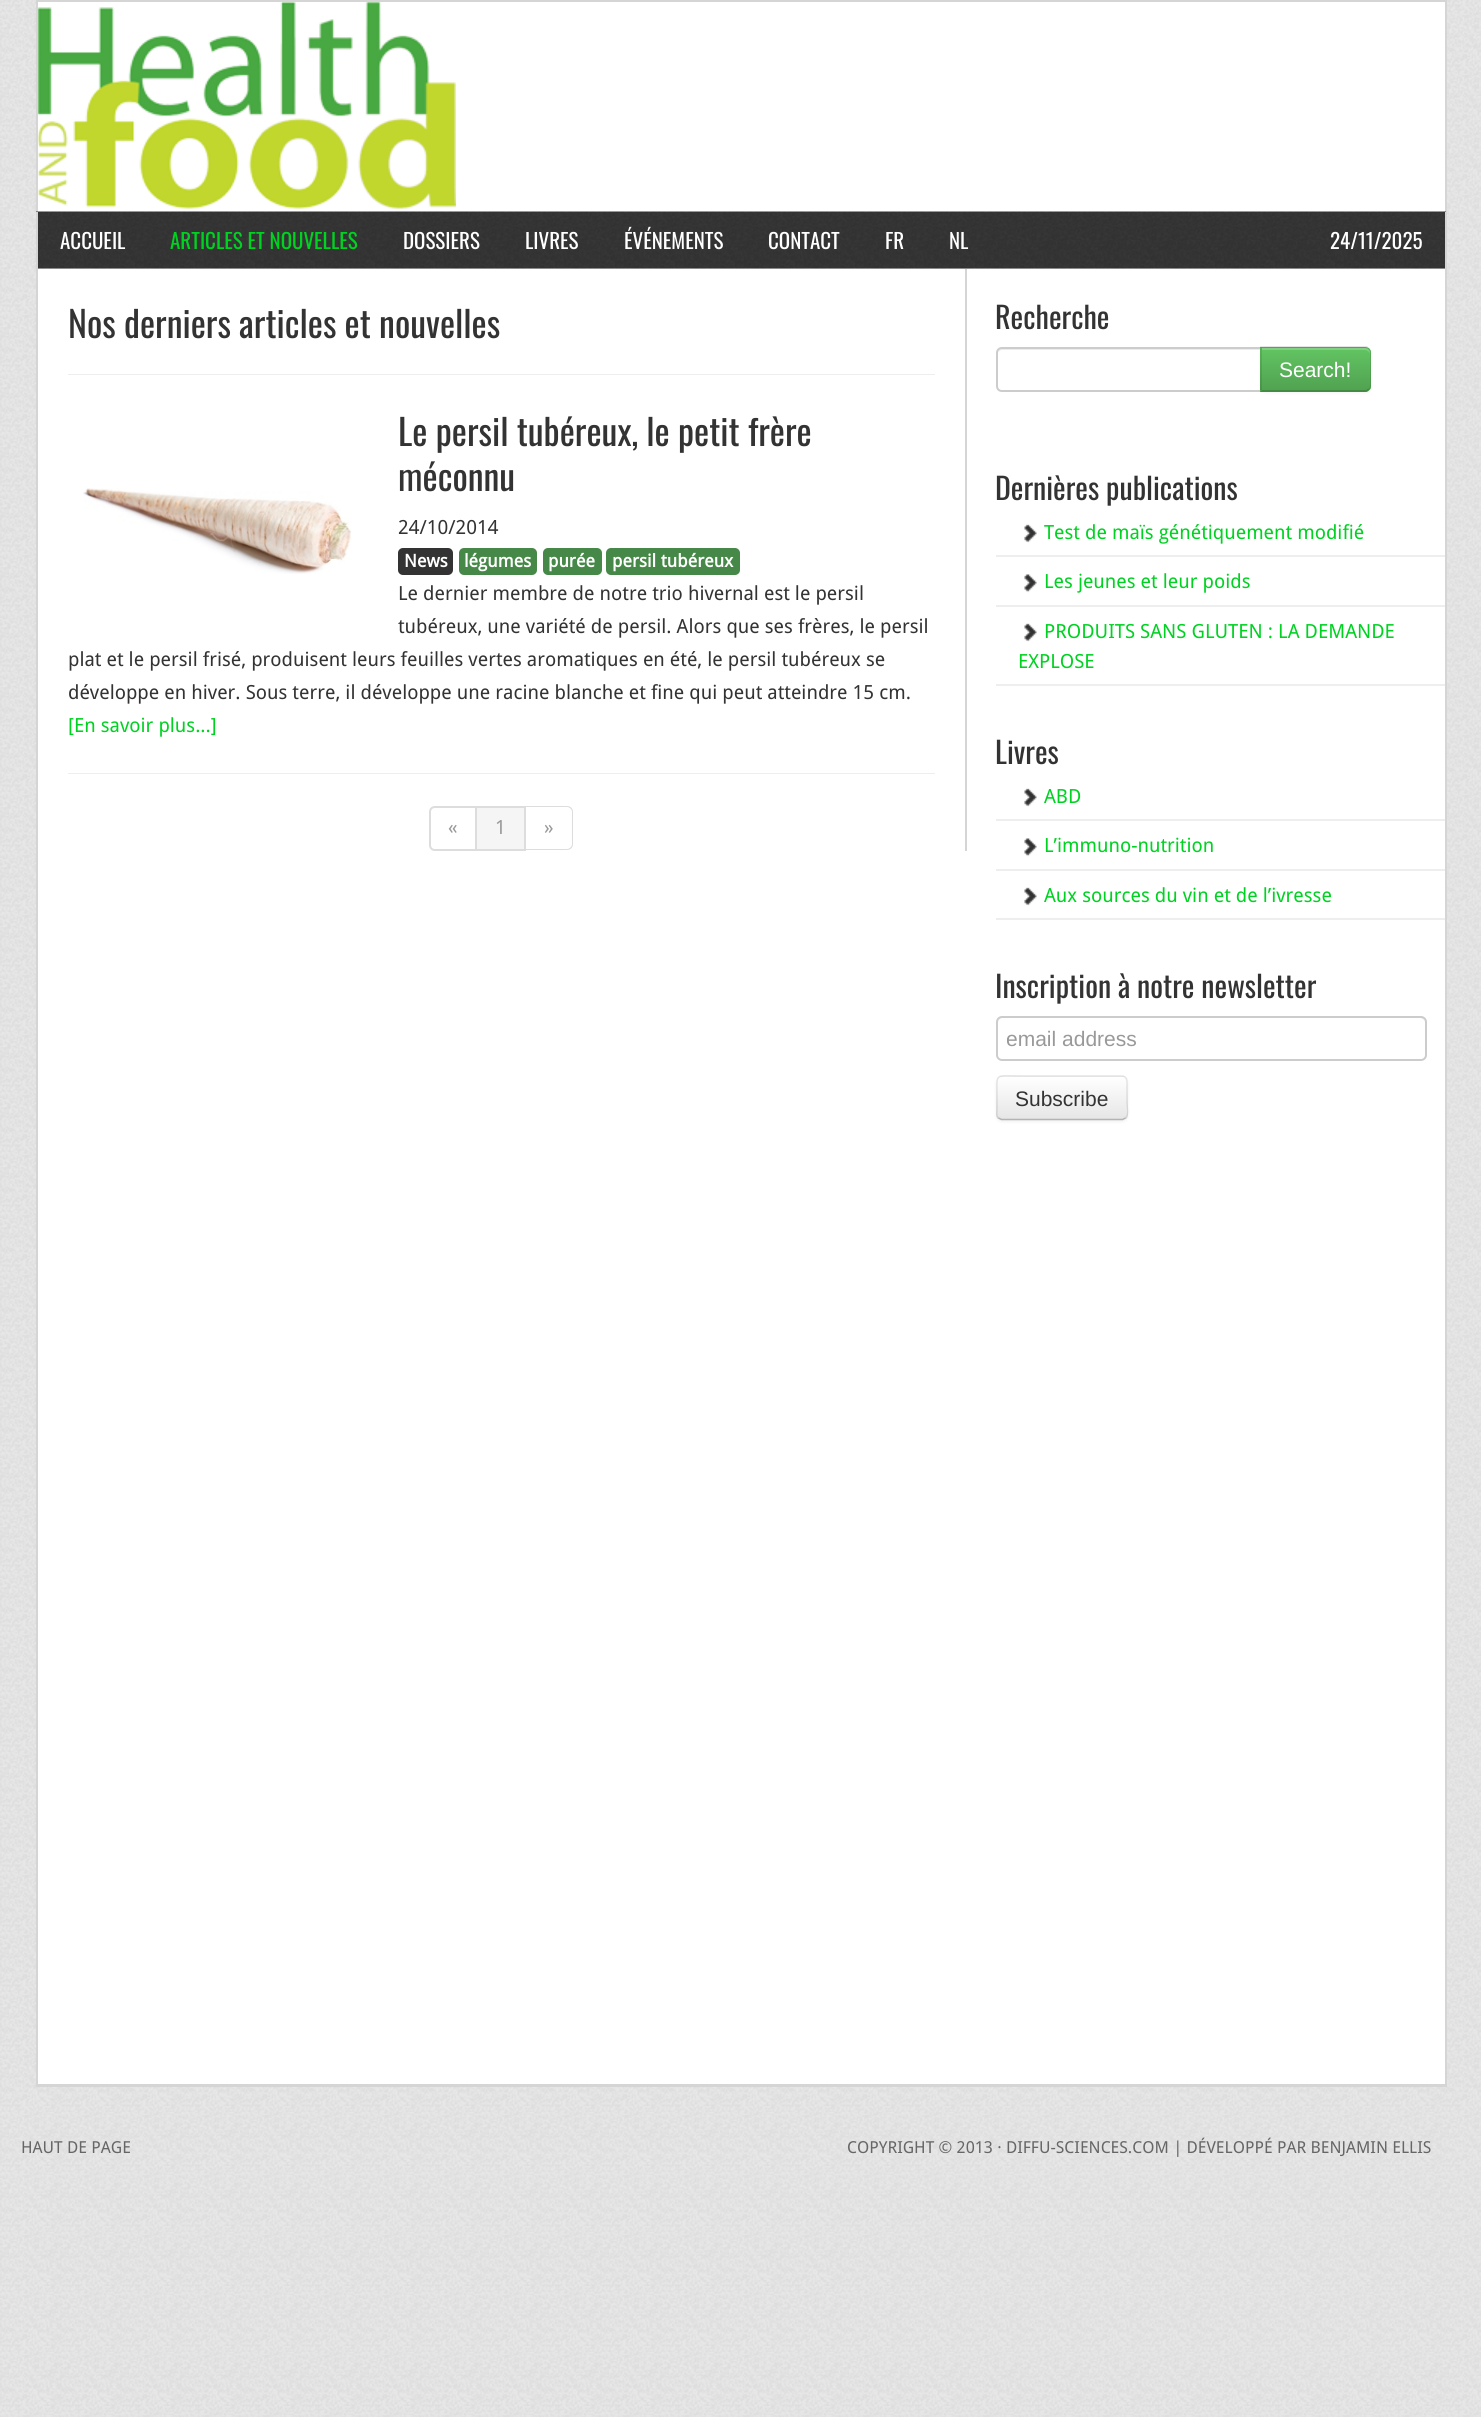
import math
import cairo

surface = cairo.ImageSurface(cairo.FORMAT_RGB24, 1481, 2417)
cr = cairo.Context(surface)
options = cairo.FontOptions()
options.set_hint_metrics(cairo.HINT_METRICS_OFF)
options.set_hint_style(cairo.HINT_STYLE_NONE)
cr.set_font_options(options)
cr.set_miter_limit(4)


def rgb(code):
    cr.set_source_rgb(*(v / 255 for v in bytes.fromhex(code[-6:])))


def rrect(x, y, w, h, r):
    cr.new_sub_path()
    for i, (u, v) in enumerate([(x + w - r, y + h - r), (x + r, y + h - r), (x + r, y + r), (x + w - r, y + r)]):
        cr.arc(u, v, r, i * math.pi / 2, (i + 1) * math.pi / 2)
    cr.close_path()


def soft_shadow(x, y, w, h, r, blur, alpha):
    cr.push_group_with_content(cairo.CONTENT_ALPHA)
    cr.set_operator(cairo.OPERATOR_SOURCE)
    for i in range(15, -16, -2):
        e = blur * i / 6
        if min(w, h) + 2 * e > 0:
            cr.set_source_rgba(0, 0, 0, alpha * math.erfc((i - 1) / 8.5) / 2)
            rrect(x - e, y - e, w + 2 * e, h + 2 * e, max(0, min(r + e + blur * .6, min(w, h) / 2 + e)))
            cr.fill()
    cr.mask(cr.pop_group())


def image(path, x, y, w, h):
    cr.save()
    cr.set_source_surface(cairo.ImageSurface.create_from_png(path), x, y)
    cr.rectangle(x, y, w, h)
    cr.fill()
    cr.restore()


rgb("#ffffff")
cr.paint()
image("img/1.png", 0, 0, 1481, 2417)
rgb("#ffffff")
cr.rectangle(38, 2, 1407, 210)
cr.fill()
image("img/2.png", 38, 2, 418, 207)
for x, y, w, h, color in [
    (36, 0, 1410, 2, "#d5d5d5"),
    (1445, 0, 2, 212, "#d5d5d5"),
    (36, 0, 2, 212, "#d5d5d5"),
]:
    rgb(color)
    cr.rectangle(x, y, w, h)
    cr.fill()
image("img/3.png", 36, 211, 1410, 58)
for x, y, w, h, color in [
    (1445, 212, 2, 1875, "#d5d5d5"),
    (36, 212, 2, 57, "#d5d5d5"),
    (38, 269, 1407, 1815, "#ffffff"),
    (36, 2084, 1410, 3, "#d5d5d5"),
    (36, 269, 2, 1816, "#d5d5d5"),
    (965, 269, 2, 582, "#d5d5d5"),
    (68, 374, 867, 1, "#eeeeee"),
]:
    rgb(color)
    cr.rectangle(x, y, w, h)
    cr.fill()
image("img/4.png", 83, 488, 269, 86)
rgb("#333333")
rrect(398, 548, 55, 27, 5)
cr.fill()
rgb("#468847")
rrect(459, 548, 78, 27, 5)
cr.fill()
rrect(543, 548, 59, 27, 5)
cr.fill()
rrect(606, 548, 134, 27, 5)
cr.fill()
rgb("#eeeeee")
cr.rectangle(68, 773, 867, 1)
cr.fill()
cr.new_path()
cr.move_to(435, 807)
cr.line_to(476, 807)
cr.line_to(476, 850)
cr.line_to(435, 850)
cr.curve_to(432, 850, 430, 848, 430, 845)
cr.line_to(430, 812)
cr.curve_to(430, 809, 432, 807, 435, 807)
cr.close_path()
rgb("#dddddd")
cr.stroke()
for x, y, w, h, color in [
    (477, 808, 47, 41, "#f5f5f5"),
    (477, 806, 48, 2, "#dddddd"),
    (524, 806, 2, 45, "#dddddd"),
    (477, 849, 48, 2, "#dddddd"),
]:
    rgb(color)
    cr.rectangle(x, y, w, h)
    cr.fill()
cr.set_fill_rule(cairo.FILL_RULE_EVEN_ODD)
cr.new_path()
cr.move_to(525, 806)
cr.line_to(567, 806)
cr.curve_to(570, 806, 573, 808, 573, 812)
cr.line_to(573, 844)
cr.curve_to(573, 848, 570, 850, 567, 850)
cr.line_to(525, 850)
cr.close_path()
cr.move_to(525, 807)
cr.line_to(567, 807)
cr.curve_to(569, 807, 572, 809, 572, 812)
cr.line_to(572, 844)
cr.curve_to(572, 847, 569, 849, 567, 849)
cr.line_to(525, 849)
cr.close_path()
cr.fill()
rgb("#ececec")
cr.set_fill_rule(cairo.FILL_RULE_WINDING)
cr.new_path()
cr.move_to(1002, 350)
cr.line_to(1260, 350)
cr.line_to(1260, 348)
cr.line_to(1003, 348)
cr.curve_to(1000, 348, 998, 351, 998, 354)
cr.curve_to(998, 352, 1000, 350, 1002, 350)
cr.close_path()
cr.fill()
cr.new_path()
cr.move_to(1002, 348)
cr.line_to(1261, 348)
cr.line_to(1261, 391)
cr.line_to(1002, 391)
cr.curve_to(999, 391, 997, 389, 997, 386)
cr.line_to(997, 353)
cr.curve_to(997, 350, 999, 348, 1002, 348)
cr.close_path()
rgb("#cccccc")
cr.stroke()
rgb("#000000")
soft_shadow(1260, 348, 111, 45, 6, 1.5, 0.05)
rgb("#5bb75b")
cr.new_path()
cr.move_to(1260, 347)
cr.line_to(1365, 347)
cr.curve_to(1368.5, 347, 1371, 349.5, 1371, 353)
cr.line_to(1371, 386)
cr.curve_to(1371, 389.5, 1368.5, 392, 1365, 392)
cr.line_to(1260, 392)
cr.close_path()
cr.fill()
cr.save()
cr.new_path()
cr.move_to(1260, 347)
cr.line_to(1365, 347)
cr.curve_to(1368.5, 347, 1371, 349.5, 1371, 353)
cr.line_to(1371, 386)
cr.curve_to(1371, 389.5, 1368.5, 392, 1365, 392)
cr.line_to(1260, 392)
cr.close_path()
cr.clip()
gradient = cairo.LinearGradient(1316, 348, 1316, 390)
gradient.add_color_stop_rgba(0, 0.384, 0.769, 0.384, 1)
gradient.add_color_stop_rgba(1, 0.318, 0.639, 0.318, 1)
cr.set_source(gradient)
cr.rectangle(1260, 348, 111, 42)
cr.fill()
cr.restore()
cr.set_source_rgba(1, 1, 1, 0.2)
cr.new_path()
cr.move_to(1262, 350)
cr.line_to(1365, 350)
cr.curve_to(1367, 350, 1370, 352, 1370, 354)
cr.line_to(1370, 353)
cr.curve_to(1370, 350, 1368, 348, 1365, 348)
cr.line_to(1262, 348)
cr.close_path()
cr.fill()
cr.set_source_rgba(0, 0, 0, 0.1)
cr.new_path()
cr.move_to(1262, 348)
cr.line_to(1260, 346)
cr.line_to(1367, 346)
cr.line_to(1369, 348)
cr.line_to(1368, 349)
cr.line_to(1365, 348)
cr.close_path()
cr.fill()
cr.new_path()
cr.move_to(1371, 386)
cr.line_to(1371, 352)
cr.curve_to(1371, 351, 1370, 349, 1369, 348)
cr.line_to(1368, 349)
cr.curve_to(1369, 350, 1370, 351, 1370, 352)
cr.line_to(1370, 386)
cr.curve_to(1370, 387, 1369, 388, 1368, 389)
cr.line_to(1369, 390)
cr.curve_to(1370, 389, 1371, 387, 1371, 386)
cr.close_path()
cr.fill()
cr.set_source_rgba(0, 0, 0, 0.25)
cr.new_path()
cr.move_to(1367, 392)
cr.line_to(1260, 392)
cr.line_to(1262, 390)
cr.line_to(1365, 390)
cr.curve_to(1366, 390, 1367, 390, 1368, 389)
cr.line_to(1369, 390)
cr.close_path()
cr.fill()
cr.set_source_rgba(0, 0, 0, 0.1)
cr.new_path()
cr.move_to(1260, 392)
cr.line_to(1262, 390)
cr.line_to(1262, 348)
cr.line_to(1260, 346)
cr.close_path()
cr.fill()
rgb("#eeeeee")
cr.rectangle(996, 555, 449, 2)
cr.fill()
image("img/5.png", 1024, 524, 13, 19)
cr.rectangle(996, 605, 449, 2)
cr.fill()
image("img/6.png", 1024, 574, 13, 19)
cr.rectangle(996, 684, 449, 2)
cr.fill()
image("img/5.png", 1024, 623, 13, 19)
cr.rectangle(996, 819, 449, 2)
cr.fill()
image("img/5.png", 1024, 788, 13, 19)
cr.rectangle(996, 869, 449, 2)
cr.fill()
image("img/6.png", 1024, 838, 13, 19)
cr.rectangle(996, 918, 449, 2)
cr.fill()
image("img/5.png", 1024, 887, 13, 19)
rgb("#ececec")
cr.new_path()
cr.move_to(1002, 1018)
cr.line_to(1420, 1018)
cr.curve_to(1423, 1018, 1425, 1021, 1425, 1023)
cr.curve_to(1425, 1020, 1423, 1017, 1420, 1017)
cr.line_to(1003, 1017)
cr.curve_to(1000, 1017, 998, 1020, 998, 1023)
cr.curve_to(998, 1021, 1000, 1018, 1002, 1018)
cr.close_path()
cr.fill()
rrect(997, 1017, 429, 43, 5)
rgb("#cccccc")
cr.stroke()
rgb("#000000")
soft_shadow(996, 1077, 132, 45, 6, 1.5, 0.05)
rgb("#f5f5f5")
rrect(996, 1076, 132, 45, 6)
cr.fill()
cr.save()
rrect(996, 1076, 132, 45, 6)
cr.clip()
gradient = cairo.LinearGradient(1062, 1077, 1062, 1119)
gradient.add_color_stop_rgba(0, 1, 1, 1, 1)
gradient.add_color_stop_rgba(1, 0.902, 0.902, 0.902, 1)
cr.set_source(gradient)
cr.rectangle(996, 1077, 132, 42)
cr.fill()
cr.restore()
cr.set_source_rgba(1, 1, 1, 0.2)
cr.new_path()
cr.move_to(1002, 1078)
cr.line_to(1102, 1078)
cr.curve_to(1126, 1078, 1126, 1073, 1126, 1094)
cr.line_to(1126, 1117)
cr.curve_to(1127, 1116, 1127, 1115, 1127, 1114)
cr.line_to(1127, 1082)
cr.curve_to(1127, 1079, 1125, 1077, 1122, 1077)
cr.line_to(1003, 1077)
cr.curve_to(1000, 1077, 998, 1079, 998, 1082)
cr.line_to(998, 1083)
cr.curve_to(998, 1081, 1000, 1078, 1002, 1078)
cr.close_path()
cr.fill()
cr.new_path()
cr.move_to(1125.5, 1118)
cr.line_to(1122.5, 1119.5)
cr.line_to(1001.5, 1119.5)
cr.line_to(998.5, 1118)
rgb("#b3b3b3")
cr.set_line_width(1.5)
cr.stroke()
cr.new_path()
cr.move_to(998.5, 1118)
cr.curve_to(996, 1116, 997, 1112, 997, 1109)
cr.line_to(997, 1098)
cr.curve_to(997, 1072, 993.5, 1076, 1022, 1076)
cr.line_to(1122, 1076)
cr.curve_to(1128, 1076.5, 1127, 1083, 1127, 1087)
cr.line_to(1127, 1103.5)
cr.curve_to(1127, 1107, 1129, 1115, 1125.5, 1118)
cr.set_source_rgba(0, 0, 0, 0.1)
cr.stroke()
cr.select_font_face("Oswald")
cr.set_font_size(21)
rgb("#ffffff")
cr.move_to(60, 249)
cr.show_text("ACCUEIL")
rgb("#00d222")
cr.move_to(170, 249)
cr.show_text("ARTICLES ET NOUVELLES")
rgb("#ffffff")
for x, y, s in [
    (403, 249, "DOSSIERS"),
    (525, 249, "LIVRES"),
    (624, 249, "ÉVÉNEMENTS"),
    (768, 249, "CONTACT"),
    (885, 249, "FR"),
    (949, 249, "NL"),
    (1330, 249, "24/11/2025"),
]:
    cr.move_to(x, y)
    cr.show_text(s)
cr.set_font_size(36)
rgb("#333333")
for x, y, s in [
    (68, 338, "Nos derniers articles et nouvelles"),
    (398, 446, "Le persil tubéreux, le petit frère"),
    (398, 491, "méconnu"),
]:
    cr.move_to(x, y)
    cr.show_text(s)
cr.select_font_face("Droid Sans")
cr.set_font_size(19.5)
cr.move_to(398, 534)
cr.show_text("24/10/2014")
cr.select_font_face("Droid Sans", cairo.FONT_SLANT_NORMAL, cairo.FONT_WEIGHT_BOLD)
cr.set_font_size(17.75)
rgb("#ffffff")
for x, y, s in [
    (404, 567, "News"),
    (464, 567, "légumes"),
    (548, 567, "purée"),
    (612, 567, "persil tubéreux"),
]:
    cr.move_to(x, y)
    cr.show_text(s)
cr.select_font_face("Droid Sans")
cr.set_font_size(19.5)
rgb("#333333")
for x, y, s in [
    (398, 600, "Le dernier membre de notre trio hivernal est le persil"),
    (398, 633, "tubéreux, une variété de persil. Alors que ses frères, le persil"),
    (68, 666, "plat et le persil frisé, produisent leurs feuilles vertes aromatiques en été, le persil tubéreux se"),
    (68, 699, "développe en hiver. Sous terre, il développe une racine blanche et fine qui peut atteindre 15 cm."),
]:
    cr.move_to(x, y)
    cr.show_text(s)
rgb("#00d222")
cr.move_to(68, 732)
cr.show_text("[En savoir plus...]")
rgb("#999999")
for x, y, s in [
    (448, 834, "«"),
    (495, 834, "1"),
    (544, 834, "»"),
]:
    cr.move_to(x, y)
    cr.show_text(s)
cr.select_font_face("Oswald")
cr.set_font_size(30)
rgb("#333333")
cr.move_to(995, 329)
cr.show_text("Recherche")
cr.select_font_face("Liberation Sans")
cr.set_font_size(21)
rgb("#ffffff")
cr.move_to(1279, 377)
cr.show_text("Search!")
cr.select_font_face("Oswald")
cr.set_font_size(30)
rgb("#333333")
cr.move_to(995, 500)
cr.show_text("Dernières publications")
cr.select_font_face("Droid Sans")
cr.set_font_size(19.5)
rgb("#00d222")
for x, y, s in [
    (1044, 539, "Test de maïs génétiquement modifié"),
    (1044, 588, "Les jeunes et leur poids"),
    (1044, 638, "PRODUITS SANS GLUTEN : LA DEMANDE"),
    (1018, 668, "EXPLOSE"),
]:
    cr.move_to(x, y)
    cr.show_text(s)
cr.select_font_face("Oswald")
cr.set_font_size(30)
rgb("#333333")
cr.move_to(995, 764)
cr.show_text("Livres")
cr.select_font_face("Droid Sans")
cr.set_font_size(19.5)
rgb("#00d222")
for x, y, s in [
    (1044, 803, "ABD"),
    (1044, 852, "L’immuno-nutrition"),
    (1044, 902, "Aux sources du vin et de l’ivresse"),
]:
    cr.move_to(x, y)
    cr.show_text(s)
cr.select_font_face("Oswald")
cr.set_font_size(30)
rgb("#333333")
cr.move_to(995, 998)
cr.show_text("Inscription à notre newsletter")
cr.save()
cr.rectangle(1007, 1026, 403, 24)
cr.clip()
cr.select_font_face("Liberation Sans")
cr.set_font_size(21)
rgb("#999999")
cr.move_to(1006, 1046)
cr.show_text("email address")
cr.restore()
cr.select_font_face("Liberation Sans")
cr.set_font_size(21)
cr.move_to(1015, 1106)
cr.show_text("Subscribe")
cr.select_font_face("Droid Sans")
cr.set_font_size(16.5)
rgb("#666666")
cr.move_to(21, 2153)
cr.show_text("HAUT DE PAGE")
cr.move_to(847, 2153)
cr.show_text("COPYRIGHT © 2013 · DIFFU-SCIENCES.COM | DÉVELOPPÉ PAR BENJAMIN ELLIS")
surface.write_to_png("page.png")
